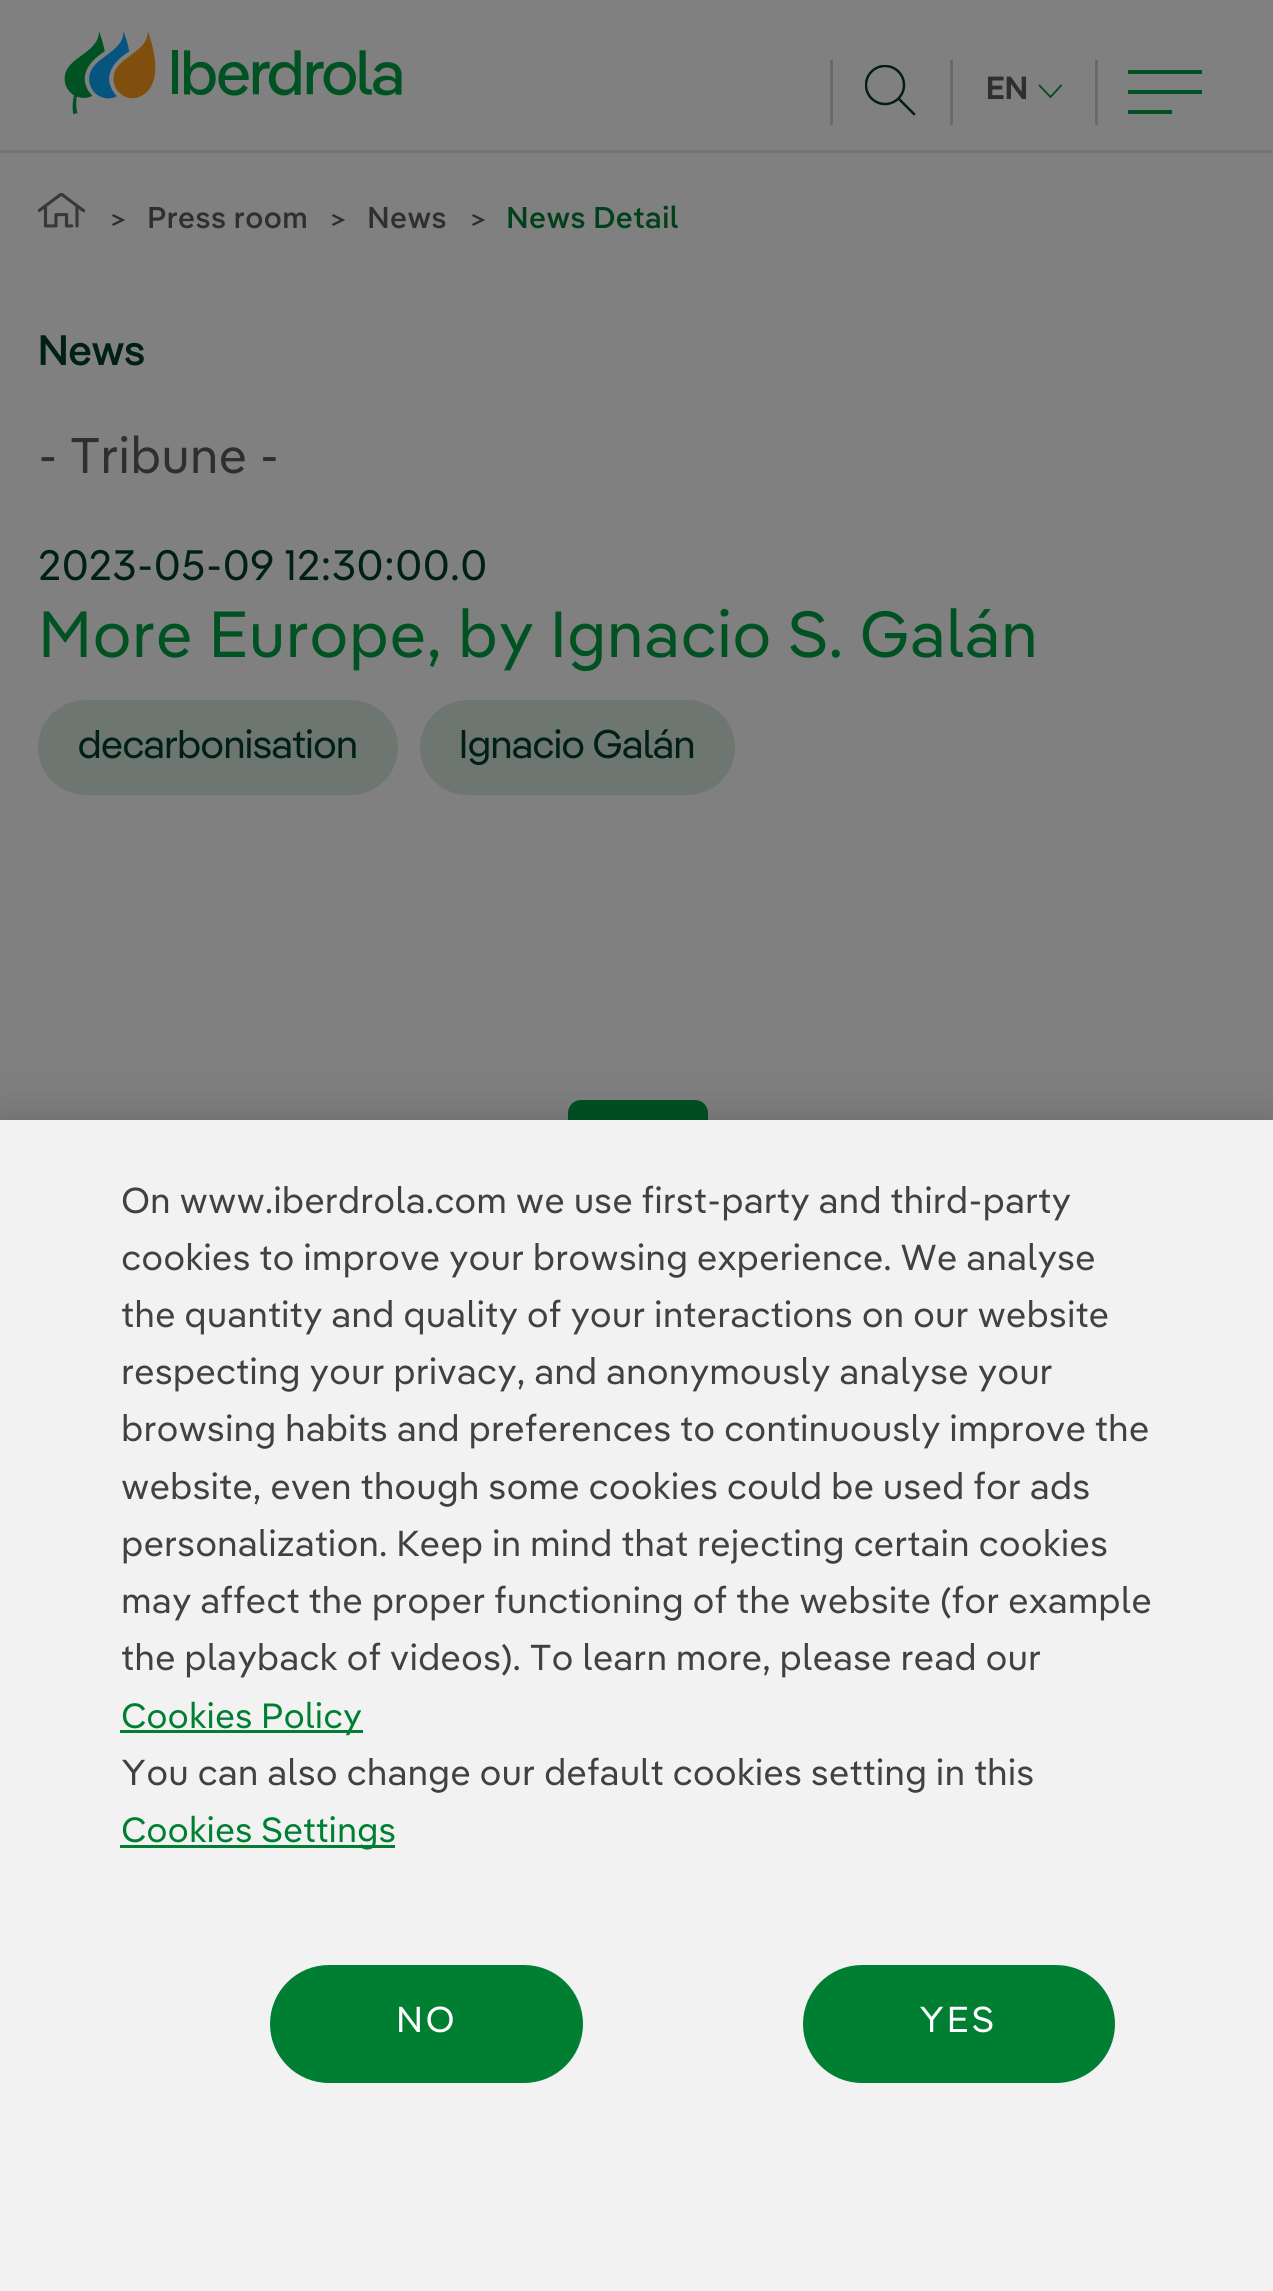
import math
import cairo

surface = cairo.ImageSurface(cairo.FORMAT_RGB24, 1273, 2291)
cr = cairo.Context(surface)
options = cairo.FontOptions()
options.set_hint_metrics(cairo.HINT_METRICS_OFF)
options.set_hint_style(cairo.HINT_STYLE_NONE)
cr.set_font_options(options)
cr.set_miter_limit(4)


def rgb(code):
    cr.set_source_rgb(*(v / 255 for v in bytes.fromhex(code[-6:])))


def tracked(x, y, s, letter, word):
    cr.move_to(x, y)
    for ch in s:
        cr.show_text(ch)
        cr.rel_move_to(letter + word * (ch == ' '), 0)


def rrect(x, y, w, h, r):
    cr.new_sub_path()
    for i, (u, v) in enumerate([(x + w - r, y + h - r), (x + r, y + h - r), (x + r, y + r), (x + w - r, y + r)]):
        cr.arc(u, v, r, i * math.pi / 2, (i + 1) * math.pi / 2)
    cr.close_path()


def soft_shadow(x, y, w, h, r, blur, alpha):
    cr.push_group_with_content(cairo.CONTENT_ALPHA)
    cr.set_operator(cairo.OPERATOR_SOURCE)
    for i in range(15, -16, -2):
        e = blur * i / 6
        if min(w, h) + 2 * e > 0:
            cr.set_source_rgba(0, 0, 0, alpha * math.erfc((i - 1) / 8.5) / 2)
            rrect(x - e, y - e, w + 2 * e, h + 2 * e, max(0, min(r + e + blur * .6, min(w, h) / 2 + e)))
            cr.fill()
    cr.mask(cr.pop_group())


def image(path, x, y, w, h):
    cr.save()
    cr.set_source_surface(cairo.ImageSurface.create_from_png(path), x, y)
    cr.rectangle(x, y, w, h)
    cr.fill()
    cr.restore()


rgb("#808080")
cr.paint()
rgb("#757575")
cr.rectangle(0, 150, 1273, 3)
cr.fill()
image("img/1.png", 64, 31, 338, 83)
rgb("#6a6a6a")
cr.rectangle(830, 60, 3, 65)
cr.fill()
cr.save()
cr.rectangle(865, 65, 53, 53)
cr.clip()
cr.arc(885, 85, 19, 0, 2 * math.pi)
rgb("#002015")
cr.set_line_width(2.5)
cr.stroke()
cr.restore()
cr.new_path()
cr.move_to(899, 99)
cr.line_to(914, 114)
rgb("#002015")
cr.set_line_width(2.5)
cr.set_line_cap(cairo.LINE_CAP_SQUARE)
cr.stroke()
rgb("#6a6a6a")
cr.rectangle(950, 60, 3, 65)
cr.fill()
cr.new_path()
cr.move_to(1061.5, 85)
cr.line_to(1050.5, 97)
cr.line_to(1039, 85)
rgb("#005222")
cr.set_line_width(1.9)
cr.set_line_cap(cairo.LINE_CAP_BUTT)
cr.stroke()
for x, y, w, h, color in [
    (1095, 60, 3, 65, "#6a6a6a"),
    (1128, 70, 74, 4, "#005222"),
    (1128, 90, 74, 4, "#005222"),
    (1128, 110, 44, 4, "#005222"),
]:
    rgb(color)
    cr.rectangle(x, y, w, h)
    cr.fill()
image("img/2.png", 38, 193, 47, 35)
image("img/3.png", 112, 214, 13, 12)
image("img/3.png", 332, 214, 13, 12)
image("img/3.png", 472, 214, 13, 12)
rgb("#6e7671")
rrect(38, 700, 360, 95, 47.5)
cr.fill()
rrect(420, 700, 315, 95, 47.5)
cr.fill()
image("img/4.png", 568, 1100, 140, 20)
rgb("#000000")
soft_shadow(0, 1120, 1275, 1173, 0, 22.5, 0.2)
for x, y, w, h, color in [
    (0, 1120, 1273, 1171, "#f2f2f2"),
    (120, 1730, 243, 3, "#007f33"),
    (120, 1845, 275, 3, "#007f33"),
]:
    rgb(color)
    cr.rectangle(x, y, w, h)
    cr.fill()
rrect(272.5, 1967.5, 308, 113, 56.5)
cr.fill_preserve()
cr.set_line_width(5)
cr.stroke()
rrect(805.5, 1967.5, 307, 113, 56.5)
cr.fill_preserve()
cr.stroke()
cr.select_font_face("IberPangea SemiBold")
cr.set_font_size(32)
rgb("#312f2d")
cr.move_to(986, 99)
cr.show_text("EN")
cr.select_font_face("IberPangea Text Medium")
cr.set_font_size(30)
cr.move_to(147, 228)
cr.show_text("Press room")
cr.move_to(367, 228)
cr.show_text("News")
rgb("#00401a")
cr.move_to(506, 228)
cr.show_text("News Detail")
cr.select_font_face("IberPangea Medium")
cr.set_font_size(42.5)
rgb("#002015")
cr.move_to(38, 365)
cr.show_text("News")
cr.select_font_face("IberPangea Text")
cr.set_font_size(50)
rgb("#312f2d")
cr.move_to(38, 473)
cr.show_text("- Tribune -")
cr.set_font_size(42.5)
rgb("#002015")
tracked(38, 580, "2023-05-09 12:30:00.0", 0, -1)
cr.set_font_size(65)
rgb("#005222")
cr.move_to(38, 657)
cr.show_text("More Europe, by Ignacio S. Galán")
cr.select_font_face("IberPangea")
cr.set_font_size(40)
rgb("#002015")
cr.move_to(78, 758)
cr.show_text("decarbonisation")
cr.move_to(459, 758)
cr.show_text("Ignacio Galán")
cr.select_font_face("IberPangea Text")
cr.set_font_size(36)
rgb("#414141")
for x, y, s in [
    (121, 1213, "On www.iberdrola.com we use first-party and third-party"),
    (121, 1270, "cookies to improve your browsing experience. We analyse"),
    (121, 1327, "the quantity and quality of your interactions on our website"),
    (121, 1384, "respecting your privacy, and anonymously analyse your"),
    (121, 1441, "browsing habits and preferences to continuously improve the"),
    (121, 1499, "website, even though some cookies could be used for ads"),
    (121, 1556, "personalization. Keep in mind that rejecting certain cookies"),
    (121, 1613, "may affect the proper functioning of the website (for example"),
    (121, 1670, "the playback of videos). To learn more, please read our"),
]:
    cr.move_to(x, y)
    cr.show_text(s)
cr.set_font_size(35)
rgb("#007f33")
cr.move_to(121, 1728)
cr.show_text("Cookies Policy")
cr.set_font_size(36)
rgb("#414141")
cr.move_to(121, 1785)
cr.show_text("You can also change our default cookies setting in this")
cr.set_font_size(35)
rgb("#007f33")
cr.move_to(121, 1842)
cr.show_text("Cookies Settings")
cr.set_font_size(36)
rgb("#ffffff")
tracked(396, 2032, "NO", 2.5, 0)
tracked(919, 2032, "YES", 2.5, 0)
surface.write_to_png("page.png")
